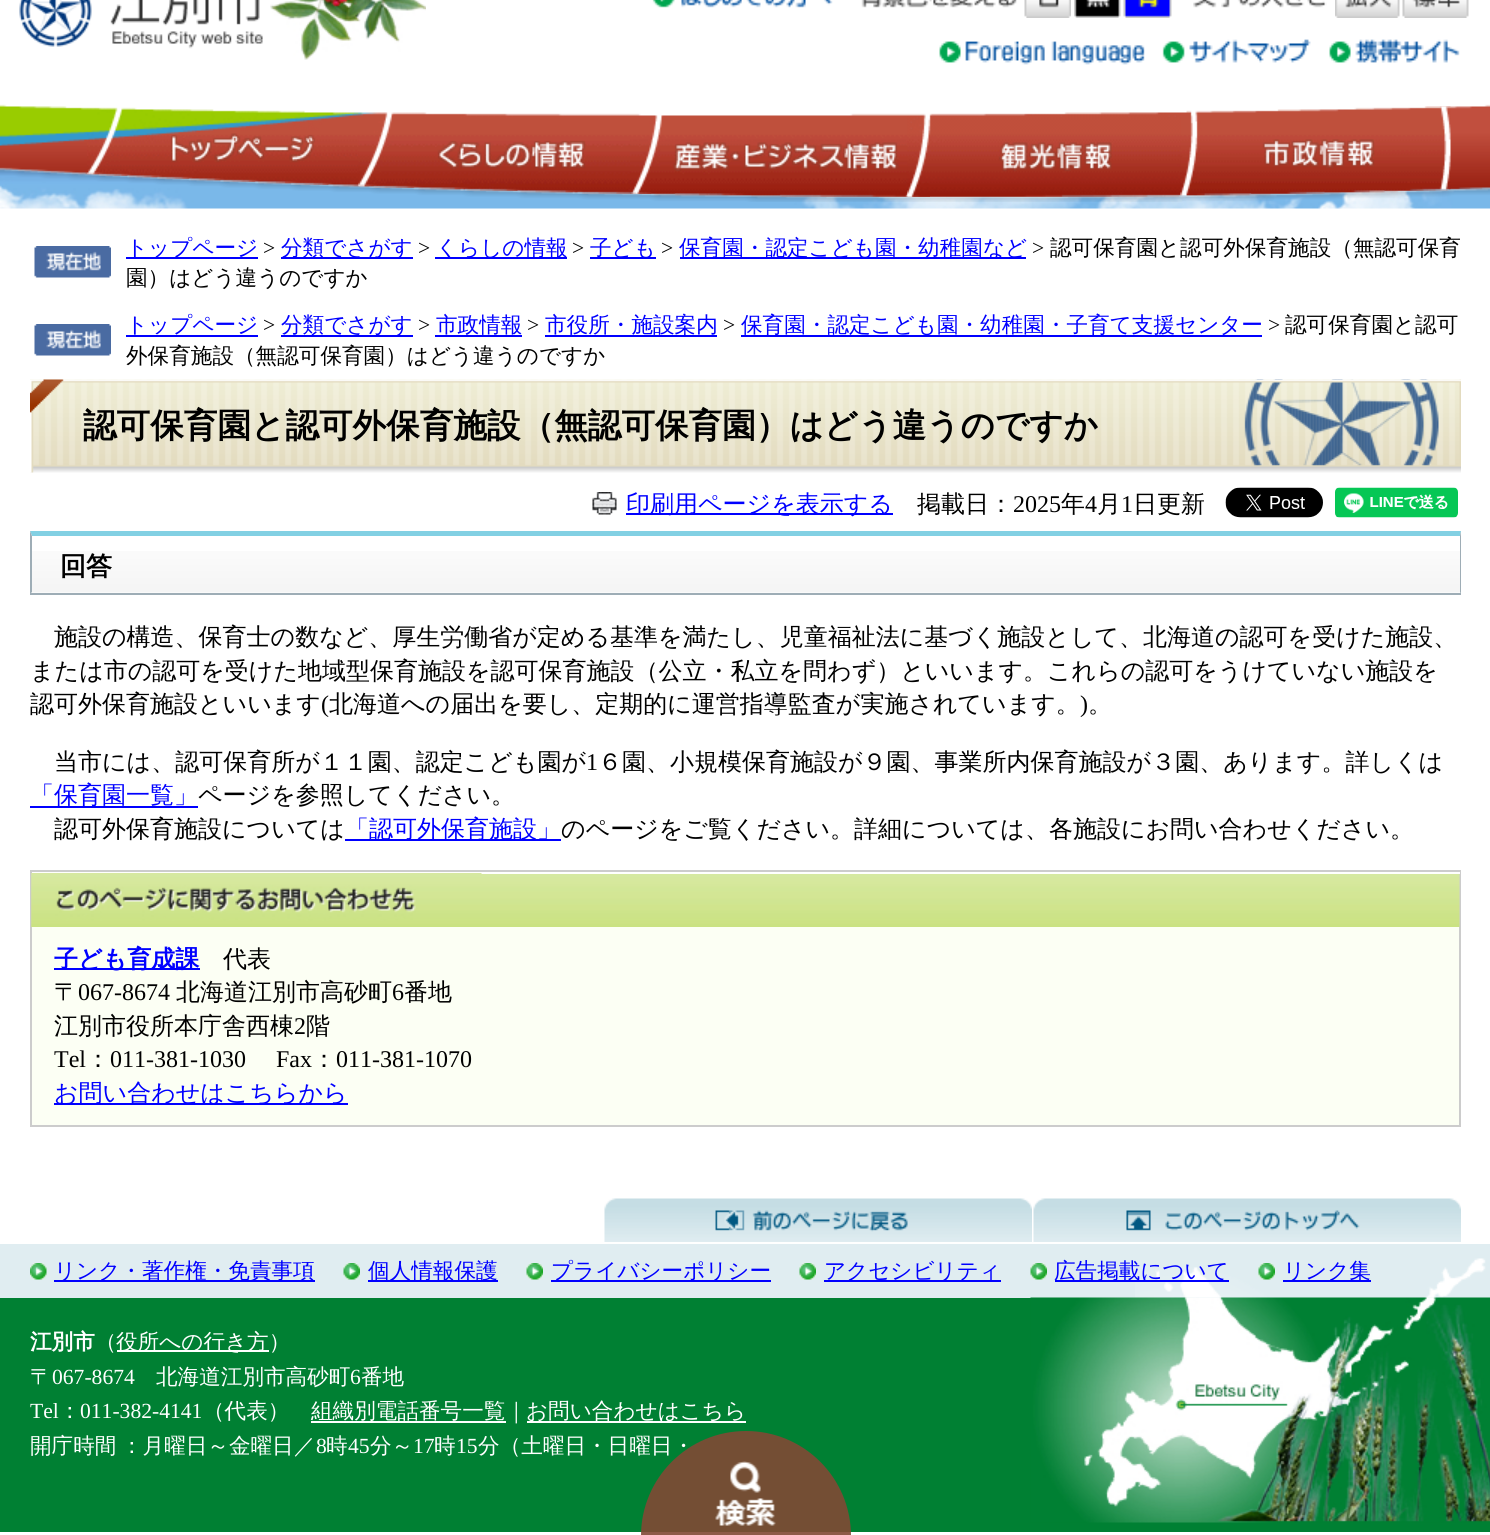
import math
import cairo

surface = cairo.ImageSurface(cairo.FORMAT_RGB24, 1490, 1535)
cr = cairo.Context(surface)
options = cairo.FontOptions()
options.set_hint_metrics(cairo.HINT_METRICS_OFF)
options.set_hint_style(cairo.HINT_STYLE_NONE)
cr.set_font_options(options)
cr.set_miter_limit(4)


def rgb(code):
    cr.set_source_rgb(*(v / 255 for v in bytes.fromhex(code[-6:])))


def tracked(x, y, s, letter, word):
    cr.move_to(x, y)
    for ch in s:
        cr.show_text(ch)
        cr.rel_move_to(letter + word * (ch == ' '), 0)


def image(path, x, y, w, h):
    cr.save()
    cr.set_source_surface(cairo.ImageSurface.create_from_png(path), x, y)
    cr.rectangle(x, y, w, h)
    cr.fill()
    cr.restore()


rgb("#ffffff")
cr.paint()
image("img/1.png", 19, 0, 244, 49)
image("img/2.png", 270, 0, 156, 60)
image("img/3.png", 652, 0, 181, 8)
image("img/4.png", 861, 0, 156, 8)
image("img/5.png", 1024, 0, 47, 18)
image("img/6.png", 1074, 0, 47, 18)
image("img/7.png", 1123, 0, 49, 18)
image("img/8.png", 1193, 0, 134, 8)
image("img/9.png", 1335, 0, 65, 18)
image("img/10.png", 1402, 0, 67, 18)
image("img/11.png", 939, 41, 206, 24)
image("img/12.png", 1162, 39, 149, 24)
image("img/13.png", 1329, 39, 131, 24)
image("img/14.png", 0, 167, 1490, 42)
image("img/15.png", 0, 104, 1490, 98)
image("img/16.png", 87, 107, 300, 81)
image("img/17.png", 358, 112, 301, 84)
image("img/18.png", 630, 113, 300, 84)
image("img/19.png", 907, 110, 290, 87)
image("img/20.png", 1180, 106, 271, 90)
image("img/23.png", 34, 246, 77, 32)
for x, y, w, h, color in [
    (126, 257, 132, 2, "#0000ff"),
    (281, 257, 132, 2, "#0000ff"),
    (435, 257, 132, 2, "#0000ff"),
    (590, 257, 66, 2, "#0000ff"),
    (680, 257, 346, 2, "#0000ff"),
]:
    rgb(color)
    cr.rectangle(x, y, w, h)
    cr.fill()
image("img/23.png", 34, 324, 77, 32)
for x, y, w, h, color in [
    (126, 335, 132, 2, "#0000ff"),
    (281, 335, 132, 2, "#0000ff"),
    (435, 335, 87, 2, "#0000ff"),
    (545, 335, 172, 2, "#0000ff"),
    (741, 335, 521, 2, "#0000ff"),
]:
    rgb(color)
    cr.rectangle(x, y, w, h)
    cr.fill()
image("img/24.png", 30, 379, 1431, 94)
image("img/25.png", 30, 379, 1431, 94)
image("img/26.png", 592, 492, 25, 23)
cr.rectangle(626, 513, 267, 2)
cr.fill()
image("img/27.png", 1225, 487, 98, 31)
image("img/28.png", 1335, 487, 123, 31)
image("img/29.png", 31, 551, 1430, 42)
rgb("#82d0e3")
cr.new_path()
cr.move_to(30, 531)
cr.line_to(1461, 531)
cr.line_to(1460, 536)
cr.line_to(32, 536)
cr.close_path()
cr.fill()
rgb("#9eadb6")
cr.new_path()
cr.move_to(1461, 531)
cr.line_to(1461, 594)
cr.line_to(1460, 592)
cr.line_to(1460, 536)
cr.close_path()
cr.fill()
cr.rectangle(30, 593, 1431, 2)
cr.fill()
cr.new_path()
cr.move_to(30, 594)
cr.line_to(30, 531)
cr.line_to(32, 536)
cr.line_to(32, 592)
cr.close_path()
cr.fill()
for x, y, w, h, color in [
    (30, 806, 168, 2, "#0000ff"),
    (345, 839, 216, 2, "#0000ff"),
    (32, 927, 1427, 198, "#fcfff4"),
]:
    rgb(color)
    cr.rectangle(x, y, w, h)
    cr.fill()
cr.rectangle(31, 871, 1429, 255)
rgb("#cccccc")
cr.stroke()
image("img/30.png", 31, 873, 1429, 54)
rgb("#ffffff")
cr.rectangle(32, 872, 1428, 2)
cr.fill()
image("img/31.png", 31, 873, 451, 54)
rgb("#0000ff")
cr.rectangle(54, 968, 146, 2)
cr.fill()
cr.rectangle(54, 1103, 294, 2)
cr.fill()
image("img/32.png", 604, 1198, 428, 44)
image("img/33.png", 1033, 1198, 428, 44)
rgb("#e0edf1")
cr.rectangle(0, 1244, 1490, 54)
cr.fill()
image("img/34.png", 1135, 1258, 351, 40)
image("img/35.png", 30, 1263, 17, 17)
rgb("#0000ff")
cr.rectangle(54, 1280, 261, 2)
cr.fill()
image("img/36.png", 343, 1263, 17, 17)
cr.rectangle(368, 1280, 130, 2)
cr.fill()
image("img/37.png", 526, 1263, 17, 17)
cr.rectangle(551, 1280, 220, 2)
cr.fill()
image("img/36.png", 799, 1263, 17, 17)
cr.rectangle(824, 1280, 177, 2)
cr.fill()
image("img/36.png", 1030, 1263, 17, 17)
cr.rectangle(1055, 1280, 174, 2)
cr.fill()
image("img/36.png", 1258, 1263, 17, 17)
cr.rectangle(1283, 1280, 88, 2)
cr.fill()
rgb("#008033")
cr.rectangle(0, 1298, 1490, 234)
cr.fill()
image("img/38.png", 1030, 1297, 460, 226)
for x, y, w, h, color in [
    (117, 1350, 152, 2, "#ffffff"),
    (311, 1421, 195, 2, "#ffffff"),
    (527, 1421, 219, 2, "#ffffff"),
]:
    rgb(color)
    cr.rectangle(x, y, w, h)
    cr.fill()
cr.select_font_face("WenQuanYi Zen Hei Medium")
cr.set_font_size(21.6)
rgb("#0000ff")
cr.move_to(126, 255)
cr.show_text("トップページ")
cr.select_font_face("Liberation Serif")
rgb("#000000")
cr.move_to(263, 255)
cr.show_text(">")
cr.select_font_face("WenQuanYi Zen Hei Medium")
rgb("#0000ff")
cr.move_to(281, 255)
cr.show_text("分類でさがす")
cr.select_font_face("Liberation Serif")
rgb("#000000")
cr.move_to(418, 255)
cr.show_text(">")
cr.select_font_face("WenQuanYi Zen Hei Medium")
rgb("#0000ff")
cr.move_to(436, 255)
cr.show_text("くらしの情報")
cr.select_font_face("Liberation Serif")
rgb("#000000")
cr.move_to(572, 255)
cr.show_text(">")
cr.select_font_face("WenQuanYi Zen Hei Medium")
rgb("#0000ff")
cr.move_to(590, 255)
cr.show_text("子ども")
cr.select_font_face("Liberation Serif")
rgb("#000000")
cr.move_to(661, 255)
cr.show_text(">")
cr.select_font_face("WenQuanYi Zen Hei Medium")
rgb("#0000ff")
cr.move_to(679, 255)
cr.show_text("保育園・認定こども園・幼稚園など")
cr.select_font_face("Liberation Serif")
rgb("#000000")
cr.move_to(1032, 255)
cr.show_text(">")
cr.select_font_face("WenQuanYi Zen Hei Medium")
cr.move_to(1050, 255)
cr.show_text("認可保育園と認可外保育施設（無認可保育")
cr.move_to(126, 285)
cr.show_text("園）はどう違うのですか")
rgb("#0000ff")
cr.move_to(126, 332)
cr.show_text("トップページ")
cr.select_font_face("Liberation Serif")
rgb("#000000")
cr.move_to(263, 332)
cr.show_text(">")
cr.select_font_face("WenQuanYi Zen Hei Medium")
rgb("#0000ff")
cr.move_to(281, 332)
cr.show_text("分類でさがす")
cr.select_font_face("Liberation Serif")
rgb("#000000")
cr.move_to(418, 332)
cr.show_text(">")
cr.select_font_face("WenQuanYi Zen Hei Medium")
rgb("#0000ff")
cr.move_to(436, 332)
cr.show_text("市政情報")
cr.select_font_face("Liberation Serif")
rgb("#000000")
cr.move_to(527, 332)
cr.show_text(">")
cr.select_font_face("WenQuanYi Zen Hei Medium")
rgb("#0000ff")
cr.move_to(545, 332)
cr.show_text("市役所・施設案内")
cr.select_font_face("Liberation Serif")
rgb("#000000")
cr.move_to(723, 332)
cr.show_text(">")
cr.select_font_face("WenQuanYi Zen Hei Medium")
rgb("#0000ff")
cr.move_to(741, 332)
cr.show_text("保育園・認定こども園・幼稚園・子育て支援センター")
cr.select_font_face("Liberation Serif")
rgb("#000000")
cr.move_to(1268, 332)
cr.show_text(">")
cr.select_font_face("WenQuanYi Zen Hei Medium")
cr.move_to(1285, 332)
cr.show_text("認可保育園と認可")
cr.move_to(126, 363)
cr.show_text("外保育施設（無認可保育園）はどう違うのですか")
cr.select_font_face("WenQuanYi Zen Hei", cairo.FONT_SLANT_NORMAL, cairo.FONT_WEIGHT_BOLD)
cr.set_font_size(33.6)
cr.move_to(83, 437)
cr.show_text("認可保育園と認可外保育施設（無認可保育園）はどう違うのですか")
cr.select_font_face("WenQuanYi Zen Hei Medium")
cr.set_font_size(24)
rgb("#0000ff")
cr.move_to(626, 512)
cr.show_text("印刷用ページを表示する")
rgb("#000000")
cr.move_to(917, 512)
cr.show_text("掲載日：")
cr.select_font_face("Liberation Serif")
cr.move_to(1013, 512)
cr.show_text("2025")
cr.select_font_face("WenQuanYi Zen Hei Medium")
cr.move_to(1061, 512)
cr.show_text("年")
cr.select_font_face("Liberation Serif")
cr.move_to(1085, 512)
cr.show_text("4")
cr.select_font_face("WenQuanYi Zen Hei Medium")
cr.move_to(1097, 512)
cr.show_text("月")
cr.select_font_face("Liberation Serif")
cr.move_to(1121, 512)
cr.show_text("1")
cr.select_font_face("WenQuanYi Zen Hei Medium")
cr.move_to(1133, 512)
cr.show_text("日更新")
cr.select_font_face("WenQuanYi Zen Hei", cairo.FONT_SLANT_NORMAL, cairo.FONT_WEIGHT_BOLD)
cr.set_font_size(26)
cr.move_to(60, 575)
cr.show_text("回答")
cr.select_font_face("WenQuanYi Zen Hei Medium")
cr.set_font_size(24)
for x, y, s in [
    (54, 645, "施設の構造、保育士の数など、厚生労働省が定める基準を満たし、児童福祉法に基づく施設として、北海道の認可を受けた施設、"),
    (30, 679, "または市の認可を受けた地域型保育施設を認可保育施設（公立・私立を問わず）といいます。これらの認可をうけていない施設を"),
    (30, 712, "認可外保育施設といいます"),
]:
    cr.move_to(x, y)
    cr.show_text(s)
cr.select_font_face("Liberation Serif")
cr.move_to(321, 712)
cr.show_text("(")
cr.select_font_face("WenQuanYi Zen Hei Medium")
cr.move_to(329, 712)
cr.show_text("北海道への届出を要し、定期的に運営指導監査が実施されています。")
cr.select_font_face("Liberation Serif")
cr.move_to(1080, 712)
cr.show_text(")")
cr.select_font_face("WenQuanYi Zen Hei Medium")
cr.move_to(1088, 712)
cr.show_text("。")
cr.move_to(54, 770)
cr.show_text("当市には、認可保育所が１１園、認定こども園が")
cr.select_font_face("Liberation Serif")
cr.move_to(586, 770)
cr.show_text("1")
cr.select_font_face("WenQuanYi Zen Hei Medium")
cr.move_to(598, 770)
cr.show_text("６園、小規模保育施設が９園、事業所内保育施設が３園、あります。詳しくは")
rgb("#0000ff")
cr.move_to(30, 803)
cr.show_text("「保育園一覧」")
rgb("#000000")
cr.move_to(198, 803)
cr.show_text("ページを参照してください。")
cr.move_to(54, 837)
cr.show_text("認可外保育施設については")
rgb("#0000ff")
cr.move_to(345, 837)
cr.show_text("「認可外保育施設」")
rgb("#000000")
cr.move_to(561, 837)
cr.show_text("のページをご覧ください。詳細については、各施設にお問い合わせください。")
cr.select_font_face("WenQuanYi Zen Hei", cairo.FONT_SLANT_NORMAL, cairo.FONT_WEIGHT_BOLD)
rgb("#0000ff")
cr.move_to(54, 967)
cr.show_text("子ども育成課")
cr.select_font_face("WenQuanYi Zen Hei Medium")
rgb("#000000")
cr.move_to(223, 967)
cr.show_text("代表")
cr.move_to(54, 1000)
cr.show_text("〒")
cr.select_font_face("Liberation Serif")
cr.move_to(78, 1000)
cr.show_text("067-8674")
cr.select_font_face("WenQuanYi Zen Hei Medium")
cr.move_to(176, 1000)
cr.show_text("北海道江別市高砂町")
cr.select_font_face("Liberation Serif")
cr.move_to(392, 1000)
cr.show_text("6")
cr.select_font_face("WenQuanYi Zen Hei Medium")
cr.move_to(404, 1000)
cr.show_text("番地")
cr.move_to(54, 1034)
cr.show_text("江別市役所本庁舎西棟")
cr.select_font_face("Liberation Serif")
cr.move_to(294, 1034)
cr.show_text("2")
cr.select_font_face("WenQuanYi Zen Hei Medium")
cr.move_to(306, 1034)
cr.show_text("階")
cr.select_font_face("Liberation Serif")
cr.move_to(54, 1067)
cr.show_text("Tel")
cr.select_font_face("WenQuanYi Zen Hei Medium")
cr.move_to(86, 1067)
cr.show_text("：")
cr.select_font_face("Liberation Serif")
cr.move_to(110, 1067)
cr.show_text("011-381-1030")
cr.move_to(276, 1067)
cr.show_text("Fax")
cr.select_font_face("WenQuanYi Zen Hei Medium")
cr.move_to(312, 1067)
cr.show_text("：")
cr.select_font_face("Liberation Serif")
cr.move_to(336, 1067)
cr.show_text("011-381-1070")
cr.select_font_face("WenQuanYi Zen Hei Medium")
rgb("#0000ff")
cr.move_to(54, 1101)
cr.show_text("お問い合わせはこちらから")
cr.set_font_size(21.6)
for x, y, s in [
    (54, 1278, "リンク・著作権・免責事項"),
    (368, 1278, "個人情報保護"),
    (551, 1278, "プライバシーポリシー"),
    (824, 1278, "アクセシビリティ"),
    (1054, 1278, "広告掲載について"),
    (1283, 1278, "リンク集"),
]:
    cr.move_to(x, y)
    cr.show_text(s)
cr.select_font_face("WenQuanYi Zen Hei", cairo.FONT_SLANT_NORMAL, cairo.FONT_WEIGHT_BOLD)
rgb("#ffffff")
cr.move_to(30, 1349)
cr.show_text("江別市")
cr.select_font_face("WenQuanYi Zen Hei Medium")
for x, y, s in [
    (95, 1349, "（"),
    (116, 1349, "役所への行き方）"),
    (30, 1384, "〒"),
]:
    cr.move_to(x, y)
    cr.show_text(s)
cr.select_font_face("Liberation Serif")
cr.move_to(52, 1384)
cr.show_text("067-8674")
cr.select_font_face("WenQuanYi Zen Hei Medium")
cr.move_to(156, 1384)
cr.show_text("北海道江別市高砂町")
cr.select_font_face("Liberation Serif")
cr.move_to(350, 1384)
cr.show_text("6")
cr.select_font_face("WenQuanYi Zen Hei Medium")
cr.move_to(361, 1384)
cr.show_text("番地")
cr.select_font_face("Liberation Serif")
cr.move_to(30, 1418)
cr.show_text("Tel")
cr.select_font_face("WenQuanYi Zen Hei Medium")
cr.move_to(59, 1418)
cr.show_text("：")
cr.select_font_face("Liberation Serif")
cr.move_to(80, 1418)
cr.show_text("011-382-4141")
cr.select_font_face("WenQuanYi Zen Hei Medium")
for x, y, s in [
    (203, 1418, "（代表）"),
    (311, 1418, "組織別電話番号一覧｜"),
    (526, 1418, "お問い合わせはこちら"),
]:
    cr.move_to(x, y)
    cr.show_text(s)
tracked(30, 1453, "開庁時間 ：月曜日～金曜日／", 0, -2)
cr.select_font_face("Liberation Serif")
cr.move_to(316, 1453)
cr.show_text("8")
cr.select_font_face("WenQuanYi Zen Hei Medium")
cr.move_to(326, 1453)
cr.show_text("時")
cr.select_font_face("Liberation Serif")
cr.move_to(348, 1453)
cr.show_text("45")
cr.select_font_face("WenQuanYi Zen Hei Medium")
cr.move_to(370, 1453)
cr.show_text("分～")
cr.select_font_face("Liberation Serif")
cr.move_to(413, 1453)
cr.show_text("17")
cr.select_font_face("WenQuanYi Zen Hei Medium")
cr.move_to(434, 1453)
cr.show_text("時")
cr.select_font_face("Liberation Serif")
cr.move_to(456, 1453)
cr.show_text("15")
cr.select_font_face("WenQuanYi Zen Hei Medium")
cr.move_to(478, 1453)
cr.show_text("分（土曜日・日曜日・")
cr.set_source_rgba(0.506, 0.286, 0.204, 0.9)
cr.new_path()
cr.move_to(746, 1431)
cr.curve_to(804, 1431, 851, 1478, 851, 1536)
cr.line_to(641, 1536)
cr.curve_to(641, 1478, 688, 1431, 746, 1431)
cr.close_path()
cr.fill()
image("img/22.png", 715, 1498, 61, 28)
image("img/21.png", 730, 1461, 31, 32)
surface.write_to_png("page.png")
